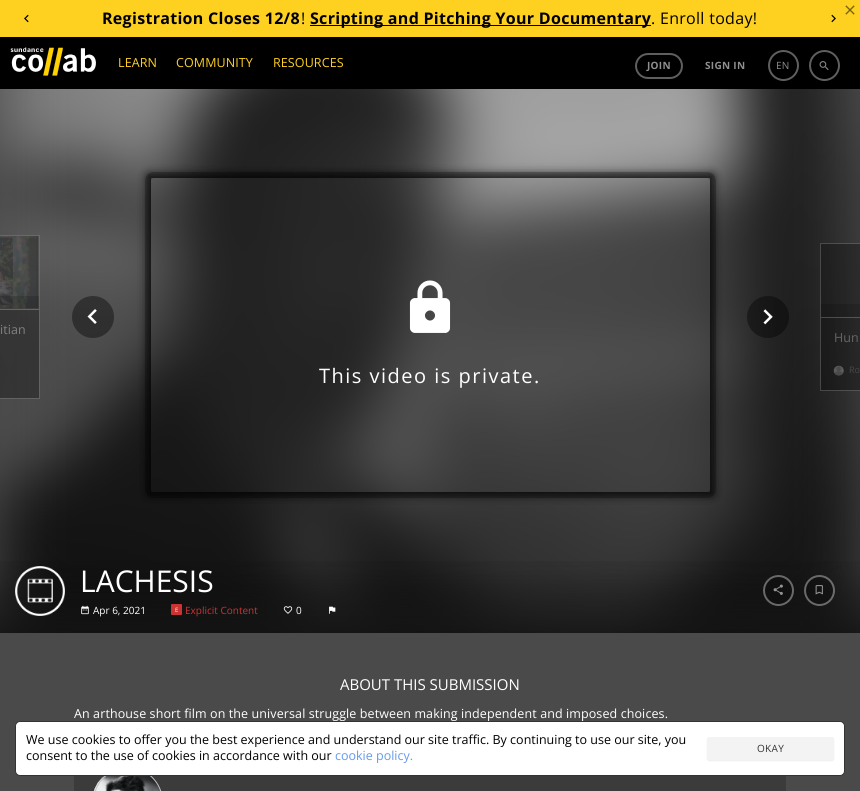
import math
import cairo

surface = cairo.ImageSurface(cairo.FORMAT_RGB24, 860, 791)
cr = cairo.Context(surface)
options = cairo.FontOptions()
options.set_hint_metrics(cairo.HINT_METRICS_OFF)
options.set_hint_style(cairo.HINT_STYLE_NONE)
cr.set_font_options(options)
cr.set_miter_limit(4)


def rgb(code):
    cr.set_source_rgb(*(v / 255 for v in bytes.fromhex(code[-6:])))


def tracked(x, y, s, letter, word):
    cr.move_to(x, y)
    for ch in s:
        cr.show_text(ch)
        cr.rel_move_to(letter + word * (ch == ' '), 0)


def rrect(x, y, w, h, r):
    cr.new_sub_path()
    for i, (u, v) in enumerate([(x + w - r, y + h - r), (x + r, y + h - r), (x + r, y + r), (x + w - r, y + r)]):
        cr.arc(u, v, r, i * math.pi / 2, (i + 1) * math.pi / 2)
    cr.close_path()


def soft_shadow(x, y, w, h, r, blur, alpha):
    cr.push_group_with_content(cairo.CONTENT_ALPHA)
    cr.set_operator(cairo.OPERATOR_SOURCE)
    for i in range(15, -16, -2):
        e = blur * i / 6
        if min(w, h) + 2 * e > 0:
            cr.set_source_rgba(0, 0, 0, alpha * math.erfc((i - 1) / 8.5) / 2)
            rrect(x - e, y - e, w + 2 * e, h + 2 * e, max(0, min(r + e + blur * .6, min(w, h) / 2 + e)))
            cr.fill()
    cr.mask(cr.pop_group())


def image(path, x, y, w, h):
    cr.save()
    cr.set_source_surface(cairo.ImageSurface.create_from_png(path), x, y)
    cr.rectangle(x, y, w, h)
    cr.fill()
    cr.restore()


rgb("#4a4a4a")
cr.paint()
rgb("#fed120")
cr.rectangle(0, 0, 860, 37)
cr.fill()
image("img/1.png", 845, 5, 10, 10)
image("img/2.png", 24, 14, 5, 9)
rgb("#000000")
cr.rectangle(310, 25, 341, 1)
cr.fill()
image("img/3.png", 831, 14, 5, 9)
cr.rectangle(0, 37, 860, 52)
cr.fill()
image("img/4.png", 10, 47, 86, 29)
rrect(636, 54, 46, 24, 12)
rgb("#5f5f5f")
cr.stroke()
image("img/5.png", 819, 61, 10, 9)
cr.arc(824.5, 65.5, 14.5, 0, 2 * math.pi)
cr.stroke()
image("img/6.png", 0, 89, 860, 544)
cr.set_source_rgba(0, 0, 0, 0.03)
cr.rectangle(23, 236, 16, 35)
cr.fill()
image("img/7.png", 0, 235, 39, 74)
cr.set_source_rgba(0, 0, 0, 0.15)
cr.rectangle(0, 296, 39, 13)
cr.fill()
cr.set_source_rgba(0, 0, 0, 0.3)
cr.rectangle(0, 310, 39, 88)
cr.fill()
cr.set_source_rgba(0.6, 0.6, 0.6, 0.3)
cr.rectangle(0, 309, 39, 1)
cr.fill()
cr.rectangle(-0.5, 235.5, 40, 163)
cr.set_line_width(1)
cr.stroke()
cr.set_source_rgba(0, 0, 0, 0.4)
cr.arc(93, 317, 21, 0, 2 * math.pi)
cr.fill()
image("img/8.png", 87, 309, 10, 15)
cr.arc(768, 317, 21, 0, 2 * math.pi)
cr.fill()
image("img/9.png", 763, 309, 10, 16)
cr.set_source_rgba(0.051, 0.051, 0.051, 0.3)
cr.rectangle(821, 244, 39, 73)
cr.fill()
cr.set_source_rgba(0, 0, 0, 0.15)
cr.rectangle(821, 304, 39, 13)
cr.fill()
cr.set_source_rgba(0, 0, 0, 0.3)
cr.rectangle(821, 318, 39, 72)
cr.fill()
cr.set_source_rgba(0.6, 0.6, 0.6, 0.3)
cr.rectangle(821, 317, 39, 1)
cr.fill()
image("img/10.png", 833, 365, 11, 11)
cr.rectangle(820.5, 243.5, 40, 147)
cr.stroke()
rrect(148, 175, 565, 320, 6)
cr.set_source_rgba(0, 0, 0, 0.25)
cr.set_line_width(6)
cr.stroke()
cr.save()
cr.set_fill_rule(cairo.FILL_RULE_EVEN_ODD)
cr.new_path()
cr.move_to(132, 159)
cr.line_to(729, 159)
cr.line_to(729, 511)
cr.line_to(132, 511)
cr.close_path()
cr.move_to(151, 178)
cr.line_to(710, 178)
cr.line_to(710, 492)
cr.line_to(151, 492)
cr.close_path()
cr.clip()
rgb("#000000")
soft_shadow(148, 175, 565, 320, 0, 5, 0.5)
soft_shadow(148, 175, 565, 320, 0, 5, 0.5)
cr.restore()
image("img/11.png", 409, 280, 42, 53)
gradient = cairo.LinearGradient(430, 548, 430, 633)
gradient.add_color_stop_rgba(0, 0, 0, 0, 0)
gradient.add_color_stop_rgba(0.3, 0, 0, 0, 0.1)
gradient.add_color_stop_rgba(1, 0, 0, 0, 0.6)
cr.set_source(gradient)
cr.rectangle(0, 561, 860, 72)
cr.fill()
image("img/12.png", 15, 566, 50, 50)
image("img/13.png", 81, 605, 8, 10)
rgb("#cc3333")
rrect(171, 604, 11, 11, 1)
cr.fill()
image("img/14.png", 283, 606, 10, 8)
image("img/15.png", 329, 606, 7, 8)
rgb("#101010")
cr.arc(778.5, 590.5, 15.5, 0, 2 * math.pi)
cr.fill()
image("img/16.png", 773, 584, 10, 11)
cr.arc(778.5, 590.5, 14.5, 0, 2 * math.pi)
rgb("#696969")
cr.set_line_width(2)
cr.stroke()
cr.set_source_rgba(0, 0, 0, 0.2)
cr.arc(819.5, 590.5, 15.5, 0, 2 * math.pi)
cr.fill()
image("img/17.png", 815, 585, 8, 10)
cr.arc(819.5, 590.5, 14.5, 0, 2 * math.pi)
cr.set_source_rgba(0.933, 0.933, 0.933, 0.4)
cr.stroke()
rgb("#3b3b3b")
cr.rectangle(74, 776, 712, 15)
cr.fill()
image("img/18.png", 93, 776, 67, 15)
rrect(93.5, 767.5, 69, 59, 34.5)
rgb("#c0c0c0")
cr.set_line_width(1)
cr.stroke()
rgb("#ffffff")
rrect(15.5, 721.5, 829, 54, 4.5)
cr.fill_preserve()
rgb("#333333")
cr.stroke()
rgb("#000000")
soft_shadow(707, 738, 127, 23, 2, 0.5, 0.07)
rgb("#f4f3f3")
rrect(707, 737, 127, 23, 2)
cr.fill()
cr.select_font_face("Open Sans", cairo.FONT_SLANT_NORMAL, cairo.FONT_WEIGHT_BOLD)
cr.set_font_size(16)
rgb("#000000")
tracked(102, 24, "Registration Closes 12/8", 0.3, 0)
cr.select_font_face("Open Sans")
tracked(301, 24, "!", 0.3, 0)
cr.select_font_face("Open Sans", cairo.FONT_SLANT_NORMAL, cairo.FONT_WEIGHT_BOLD)
tracked(310, 24, "Scripting and Pitching Your Documentary", 0.3, 0)
cr.select_font_face("Open Sans")
tracked(651, 24, ". Enroll today!", 0.3, 0)
cr.set_font_size(12.5)
rgb("#fed120")
for x, y, s in [
    (118, 67, "LEARN"),
    (176, 67, "COMMUNITY"),
    (273, 67, "RESOURCES"),
]:
    tracked(x, y, s, 0.1, 0)
cr.select_font_face("Open Sans", cairo.FONT_SLANT_NORMAL, cairo.FONT_WEIGHT_BOLD)
cr.set_font_size(10)
rgb("#8f8f8f")
tracked(647, 69, "JOIN", 0.3, 0)
tracked(705, 69, "SIGN IN", 0.3, 0)
cr.select_font_face("Open Sans")
tracked(776, 69, "EN", 0.1, 0)
cr.new_path()
cr.arc(783.5, 65.5, 14.5, 0, 2 * math.pi)
rgb("#5f5f5f")
cr.set_line_width(2)
cr.stroke()
cr.set_font_size(12.5)
rgb("#818181")
tracked(0, 334, "itian", 0.1, 0)
rgb("#656565")
tracked(834, 342, "Hun", 0.1, 0)
cr.set_font_size(9)
rgb("#474747")
cr.move_to(849, 373)
cr.show_text("Ro")
cr.set_font_size(20)
rgb("#ffffff")
tracked(319, 383, "This video is private.", 1.5, 0)
cr.set_font_size(30)
cr.move_to(80, 592)
cr.show_text("LACHESIS")
cr.set_font_size(10)
cr.move_to(93, 614)
cr.show_text("Apr 6, 2021")
cr.set_font_size(6)
cr.move_to(175, 612)
cr.show_text("E")
cr.set_font_size(10)
rgb("#cc3333")
cr.move_to(185, 614)
cr.show_text("Explicit Content")
rgb("#ffffff")
cr.move_to(296, 614)
cr.show_text("0")
cr.set_font_size(15)
cr.move_to(340, 690)
cr.show_text("ABOUT THIS SUBMISSION")
cr.set_font_size(12.5)
tracked(74, 718, "An arthouse short film on the universal struggle between making independent and imposed choices.", 0.1, 0)
rgb("#000000")
cr.move_to(26, 744)
cr.show_text("We use cookies to offer you the best experience and understand our site traffic. By continuing to use our site, you")
cr.move_to(26, 760)
cr.show_text("consent to the use of cookies in accordance with our")
rgb("#6699ee")
cr.move_to(335, 760)
cr.show_text("cookie policy.")
cr.set_font_size(10)
rgb("#333333")
tracked(757, 752, "OKAY", 0.3, 0)
surface.write_to_png("page.png")
